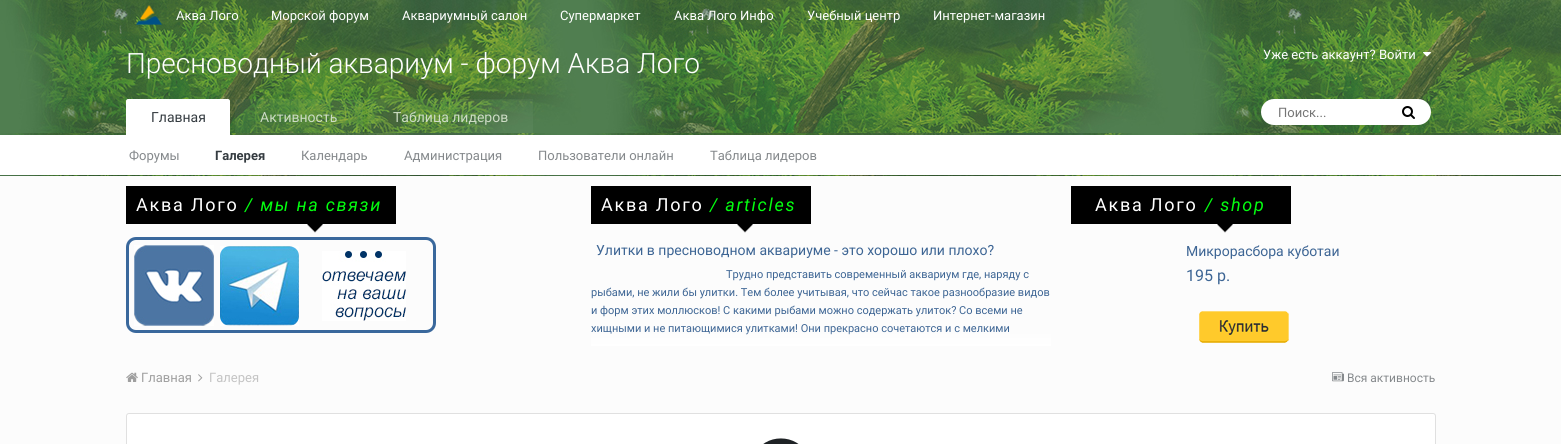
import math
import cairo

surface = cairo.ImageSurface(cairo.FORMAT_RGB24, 1561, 444)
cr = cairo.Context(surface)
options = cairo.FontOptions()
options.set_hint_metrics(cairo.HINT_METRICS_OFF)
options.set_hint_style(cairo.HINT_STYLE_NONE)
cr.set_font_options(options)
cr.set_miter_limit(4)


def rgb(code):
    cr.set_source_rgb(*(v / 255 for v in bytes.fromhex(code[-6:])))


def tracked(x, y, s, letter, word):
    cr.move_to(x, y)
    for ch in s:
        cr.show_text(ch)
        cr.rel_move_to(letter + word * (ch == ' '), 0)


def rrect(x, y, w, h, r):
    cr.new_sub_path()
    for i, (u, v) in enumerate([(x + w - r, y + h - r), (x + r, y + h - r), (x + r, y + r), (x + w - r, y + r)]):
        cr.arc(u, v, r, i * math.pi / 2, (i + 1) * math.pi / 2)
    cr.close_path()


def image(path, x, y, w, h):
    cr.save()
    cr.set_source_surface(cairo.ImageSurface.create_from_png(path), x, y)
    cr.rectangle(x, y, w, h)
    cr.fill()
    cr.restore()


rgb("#fcfcfc")
cr.paint()
image("img/1.png", 0, 175, 1561, 1)
cr.set_source_rgba(0, 0, 0, 0.1)
cr.rectangle(0, 175, 1561, 1)
cr.fill()
image("img/2.png", 0, 0, 1561, 135)
image("img/3.png", 136, 5, 26, 20)
image("img/4.png", 1423, 52, 8, 5)
rgb("#ffffff")
cr.rectangle(0, 135, 1561, 40)
cr.fill()
cr.set_source_rgba(1, 1, 1, 0.04)
cr.rectangle(368, 99, 165, 36)
cr.fill()
rgb("#ffffff")
cr.new_path()
cr.move_to(128, 99)
cr.line_to(228, 99)
cr.curve_to(229, 99, 230, 100, 230, 101)
cr.line_to(230, 135)
cr.line_to(126, 135)
cr.line_to(126, 101)
cr.curve_to(126, 100, 127, 99, 128, 99)
cr.close_path()
cr.fill()
cr.set_source_rgba(1, 1, 1, 0.04)
cr.rectangle(235, 99, 128, 36)
cr.fill()
rgb("#ffffff")
rrect(1261, 99, 170, 26, 13)
cr.fill()
image("img/5.png", 1402, 106, 13, 13)
rgb("#000000")
cr.rectangle(126, 186, 270, 38)
cr.fill()
rgb("#cccccc")
cr.new_path()
cr.move_to(307, 225)
cr.line_to(323, 225)
cr.line_to(315, 233)
cr.close_path()
cr.fill()
rgb("#000000")
cr.new_path()
cr.move_to(307, 224)
cr.line_to(323, 224)
cr.line_to(315, 232)
cr.close_path()
cr.fill()
rrect(127.5, 238.5, 307, 93, 8.5)
rgb("#3a689c")
cr.set_line_width(3)
cr.stroke()
image("img/6.png", 134, 245, 80, 81)
image("img/7.png", 220, 246, 79, 80)
image("img/8.png", 322, 251, 84, 70)
rgb("#000000")
cr.rectangle(591, 186, 220, 38)
cr.fill()
rgb("#cccccc")
cr.new_path()
cr.move_to(737, 225)
cr.line_to(753, 225)
cr.line_to(745, 233)
cr.close_path()
cr.fill()
rgb("#000000")
cr.new_path()
cr.move_to(737, 224)
cr.line_to(753, 224)
cr.line_to(745, 232)
cr.close_path()
cr.fill()
cr.rectangle(1071, 186, 220, 38)
cr.fill()
rgb("#cccccc")
cr.new_path()
cr.move_to(1217, 225)
cr.line_to(1233, 225)
cr.line_to(1225, 233)
cr.close_path()
cr.fill()
rgb("#000000")
cr.new_path()
cr.move_to(1217, 224)
cr.line_to(1233, 224)
cr.line_to(1225, 232)
cr.close_path()
cr.fill()
image("img/9.png", 1199, 311, 90, 32)
image("img/10.png", 126, 372, 12, 10)
image("img/11.png", 198, 374, 5, 8)
image("img/12.png", 1332, 372, 12, 10)
rgb("#ffffff")
rrect(126.5, 413.5, 1309, 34, 2.5)
cr.fill_preserve()
rgb("#e0e0e0")
cr.set_line_width(1)
cr.stroke()
image("img/13.png", 763, 438, 36, 6)
cr.select_font_face("Roboto")
cr.set_font_size(13)
rgb("#ffffff")
for x, y, s in [
    (176, 20, "Аква Лого"),
    (271, 20, "Морской форум"),
    (402, 20, "Аквариумный салон"),
    (560, 20, "Супермаркет"),
    (674, 20, "Аква Лого Инфо"),
    (807, 20, "Учебный центр"),
    (933, 20, "Интернет-магазин"),
]:
    cr.move_to(x, y)
    cr.show_text(s)
cr.select_font_face("Roboto Light")
cr.set_font_size(28)
cr.move_to(126, 73)
cr.show_text("Пресноводный аквариум - форум Аква Лого")
cr.select_font_face("Roboto")
cr.set_font_size(13)
cr.move_to(1263, 59)
cr.show_text("Уже есть аккаунт? Войти")
cr.set_font_size(14)
rgb("#ccdbc4")
cr.move_to(393, 122)
cr.show_text("Таблица лидеров")
rgb("#353c41")
cr.move_to(151, 122)
cr.show_text("Главная")
cr.set_font_size(13)
rgb("#85898c")
cr.move_to(129, 160)
cr.show_text("Форумы")
cr.select_font_face("Roboto", cairo.FONT_SLANT_NORMAL, cairo.FONT_WEIGHT_BOLD)
rgb("#353c41")
cr.move_to(215, 160)
cr.show_text("Галерея")
cr.select_font_face("Roboto")
rgb("#85898c")
for x, y, s in [
    (301, 160, "Календарь"),
    (404, 160, "Администрация"),
    (538, 160, "Пользователи онлайн"),
    (710, 160, "Таблица лидеров"),
]:
    cr.move_to(x, y)
    cr.show_text(s)
cr.set_font_size(14)
rgb("#ccdbc4")
cr.move_to(260, 122)
cr.show_text("Активность")
cr.set_font_size(13)
rgb("#757575")
cr.move_to(1278, 117)
cr.show_text("Поиск...")
cr.set_font_size(18)
rgb("#ffffff")
tracked(136, 211, "Аква Лого", 1.75, 0)
cr.select_font_face("Roboto", cairo.FONT_SLANT_ITALIC)
rgb("#03fc0f")
tracked(245, 211, "/ мы на связи", 1.75, 0)
cr.select_font_face("Roboto")
rgb("#ffffff")
tracked(601, 211, "Аква Лого", 1.75, 0)
cr.select_font_face("Roboto", cairo.FONT_SLANT_ITALIC)
rgb("#03fc0f")
tracked(710, 211, "/ articles", 1.75, 0)
cr.select_font_face("Roboto")
cr.set_font_size(14)
rgb("#3d6594")
cr.move_to(596, 255)
cr.show_text("Улитки в пресноводном аквариуме - это хорошо или плохо?")
cr.set_font_size(11)
for x, y, s in [
    (726, 278, "Трудно представить современный аквариум где, наряду с"),
    (591, 296, "рыбами, не жили бы улитки. Тем более учитывая, что сейчас такое разнообразие видов"),
    (591, 314, "и форм этих моллюсков! С какими рыбами можно содержать улиток? Со всеми не"),
    (591, 332, "хищными и не питающимися улитками! Они прекрасно сочетаются и с мелкими"),
]:
    cr.move_to(x, y)
    cr.show_text(s)
gradient = cairo.LinearGradient(821, 331, 821, 346)
gradient.add_color_stop_rgba(0, 1, 1, 1, 0)
gradient.add_color_stop_rgba(1, 1, 1, 1, 1)
cr.set_source(gradient)
cr.rectangle(591, 331, 460, 15)
cr.fill()
cr.set_font_size(18)
rgb("#ffffff")
tracked(1095, 211, "Аква Лого", 1.75, 0)
cr.select_font_face("Roboto", cairo.FONT_SLANT_ITALIC)
rgb("#03fc0f")
tracked(1205, 211, "/ shop", 1.75, 0)
cr.select_font_face("Roboto")
cr.set_font_size(14)
rgb("#3d6594")
cr.move_to(1186, 256)
cr.show_text("Микрорасбора куботаи")
cr.set_font_size(16)
cr.move_to(1186, 281)
cr.show_text("195 р.")
cr.set_font_size(13)
rgb("#9f9f9f")
cr.move_to(141, 382)
cr.show_text("Главная")
rgb("#c4c4c4")
cr.move_to(209, 382)
cr.show_text("Галерея")
cr.set_font_size(12)
rgb("#85898c")
cr.move_to(1347, 382)
cr.show_text("Вся активность")
surface.write_to_png("page.png")
